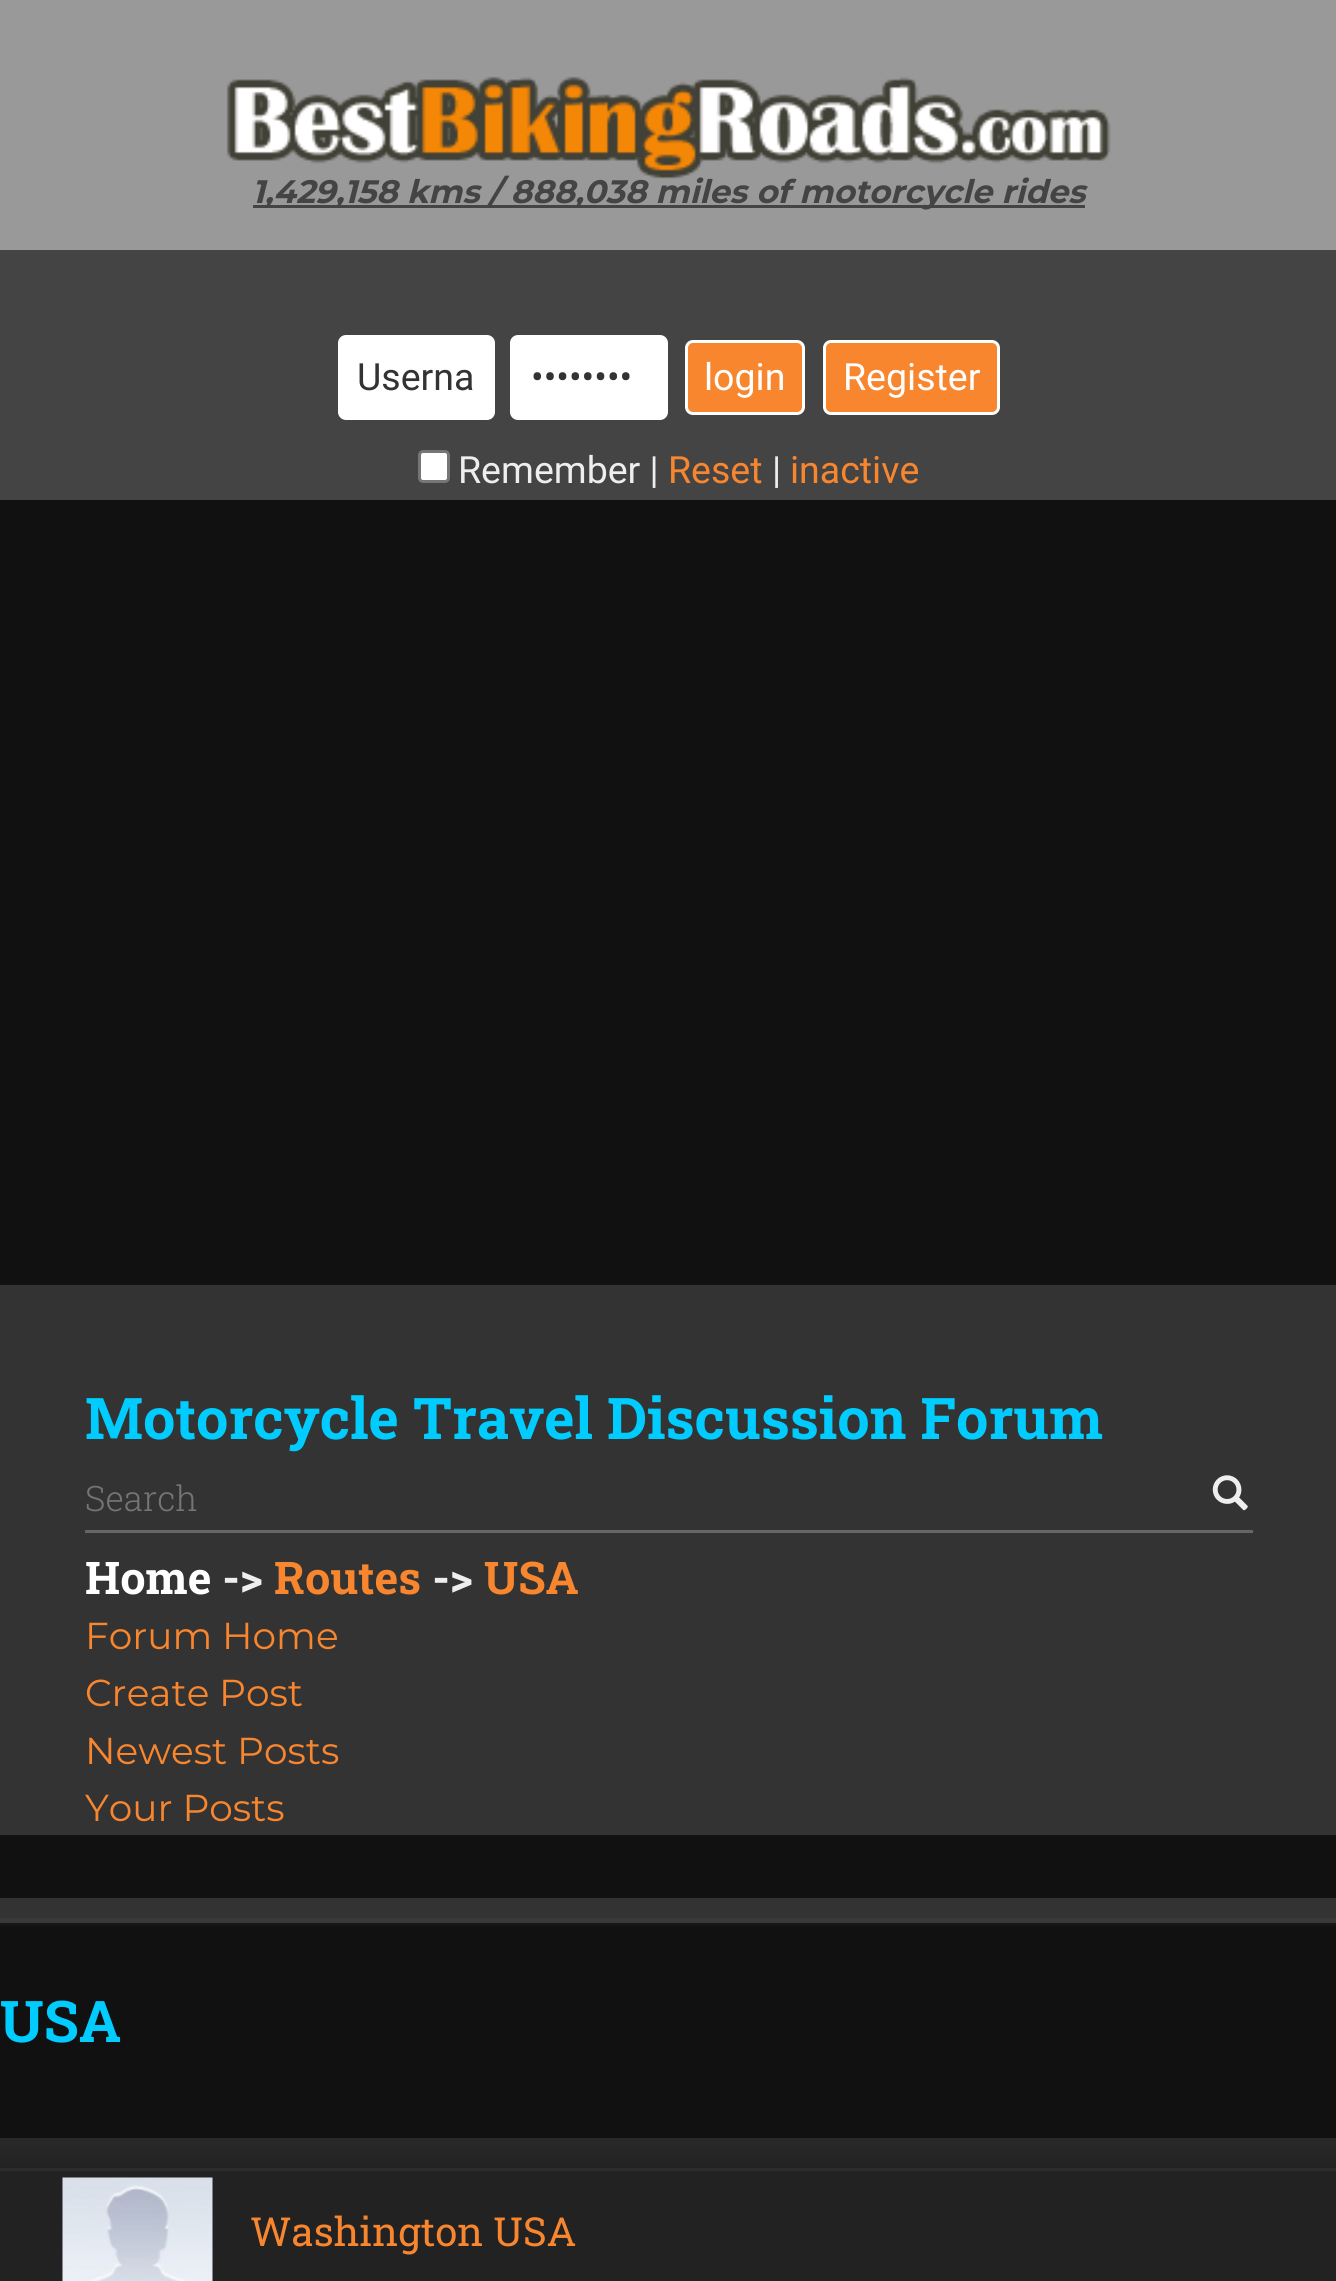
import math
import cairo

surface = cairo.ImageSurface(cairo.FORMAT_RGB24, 1336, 2281)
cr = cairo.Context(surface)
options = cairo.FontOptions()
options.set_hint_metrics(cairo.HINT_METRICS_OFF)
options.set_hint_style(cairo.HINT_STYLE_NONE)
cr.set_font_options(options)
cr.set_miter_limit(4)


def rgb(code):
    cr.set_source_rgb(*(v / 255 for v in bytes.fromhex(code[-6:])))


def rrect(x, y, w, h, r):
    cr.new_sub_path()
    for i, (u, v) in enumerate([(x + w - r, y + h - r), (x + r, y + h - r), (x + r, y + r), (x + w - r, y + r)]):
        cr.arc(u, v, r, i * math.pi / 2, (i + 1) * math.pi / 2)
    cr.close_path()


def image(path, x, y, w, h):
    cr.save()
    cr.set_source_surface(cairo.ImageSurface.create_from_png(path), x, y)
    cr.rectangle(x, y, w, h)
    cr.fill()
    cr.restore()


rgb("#111111")
cr.paint()
rgb("#444444")
cr.rectangle(0, 250, 1336, 250)
cr.fill()
rgb("#999999")
cr.rectangle(0, 0, 1336, 250)
cr.fill()
image("img/1.png", 226, 76, 885, 103)
rgb("#444444")
cr.rectangle(253, 205, 832, 3)
cr.fill()
rgb("#ffffff")
rrect(339.5, 336.5, 154, 82, 6.5)
cr.fill_preserve()
cr.set_line_width(3)
cr.stroke()
rrect(511.5, 336.5, 155, 82, 6.5)
cr.fill_preserve()
cr.stroke()
rgb("#f8862f")
rrect(686.5, 341.5, 117, 72, 6.5)
cr.fill_preserve()
rgb("#ffffff")
cr.stroke()
rgb("#f8862f")
rrect(824.5, 341.5, 174, 72, 6.5)
cr.fill_preserve()
rgb("#ffffff")
cr.stroke()
rrect(419.5, 451.5, 29, 30, 3.5)
cr.fill_preserve()
rgb("#767676")
cr.stroke()
rgb("#333333")
cr.rectangle(0, 1285, 1336, 550)
cr.fill()
rgb("#666666")
cr.rectangle(85, 1530, 1168, 3)
cr.fill()
image("img/2.png", 1212, 1475, 36, 36)
rgb("#333333")
cr.rectangle(0, 1898, 1336, 25)
cr.fill()
gradient = cairo.LinearGradient(669, 1918, 669, 1948)
gradient.add_color_stop_rgba(0, 1, 1, 1, 0.03)
gradient.add_color_stop_rgba(1, 1, 1, 1, 0)
cr.set_source(gradient)
cr.rectangle(0, 1918, 1336, 8)
cr.fill()
rgb("#222222")
cr.rectangle(0, 2171, 1336, 110)
cr.fill()
gradient = cairo.LinearGradient(669, 2138, 669, 2168)
gradient.add_color_stop_rgba(0, 0.161, 0.161, 0.161, 1)
gradient.add_color_stop_rgba(1, 0.133, 0.133, 0.133, 1)
cr.set_source(gradient)
cr.rectangle(0, 2138, 1336, 30)
cr.fill()
rgb("#2c2c2c")
cr.rectangle(0, 2168, 1336, 3)
cr.fill()
image("img/3.png", 62, 2177, 151, 104)
cr.select_font_face("Montserrat", cairo.FONT_SLANT_ITALIC, cairo.FONT_WEIGHT_BOLD)
cr.set_font_size(32.5)
rgb("#444444")
cr.move_to(252, 203)
cr.show_text("1,429,158 kms / 888,038 miles of motorcycle rides")
cr.select_font_face("Roboto")
cr.set_font_size(37.5)
rgb("#333333")
cr.move_to(357, 390)
cr.show_text("Userna")
cr.move_to(531, 390)
cr.show_text("••••••••")
rgb("#ffffff")
cr.move_to(704, 390)
cr.show_text("login")
cr.move_to(843, 390)
cr.show_text("Register")
rgb("#eeeeee")
cr.move_to(458, 483)
cr.show_text("Remember |")
rgb("#f8862f")
cr.move_to(668, 483)
cr.show_text("Reset")
rgb("#eeeeee")
cr.move_to(772, 483)
cr.show_text("|")
rgb("#f8862f")
cr.move_to(790, 483)
cr.show_text("inactive")
cr.select_font_face("Roboto Slab", cairo.FONT_SLANT_NORMAL, cairo.FONT_WEIGHT_BOLD)
cr.set_font_size(57.5)
rgb("#00ccff")
cr.move_to(85, 1439)
cr.show_text("Motorcycle Travel Discussion Forum")
cr.select_font_face("Roboto Slab Light")
cr.set_font_size(35)
rgb("#757575")
cr.move_to(85, 1511)
cr.show_text("Search")
cr.select_font_face("Roboto Slab", cairo.FONT_SLANT_NORMAL, cairo.FONT_WEIGHT_BOLD)
cr.set_font_size(45)
rgb("#ffffff")
cr.move_to(85, 1594)
cr.show_text("Home")
rgb("#eeeeee")
cr.move_to(222, 1594)
cr.show_text("->")
rgb("#f8862f")
cr.move_to(274, 1594)
cr.show_text("Routes")
rgb("#eeeeee")
cr.move_to(432, 1594)
cr.show_text("->")
rgb("#f8862f")
cr.move_to(484, 1594)
cr.show_text("USA")
cr.select_font_face("Montserrat")
cr.set_font_size(37.5)
for x, y, s in [
    (85, 1649, "Forum Home"),
    (85, 1706, "Create Post"),
    (85, 1764, "Newest Posts"),
    (85, 1821, "Your Posts"),
]:
    cr.move_to(x, y)
    cr.show_text(s)
cr.select_font_face("Roboto Slab", cairo.FONT_SLANT_NORMAL, cairo.FONT_WEIGHT_BOLD)
cr.set_font_size(57.5)
rgb("#00ccff")
cr.move_to(0, 2042)
cr.show_text("USA")
cr.select_font_face("Roboto Slab")
cr.set_font_size(40)
rgb("#f8862f")
cr.move_to(250, 2246)
cr.show_text("Washington USA")
surface.write_to_png("page.png")
